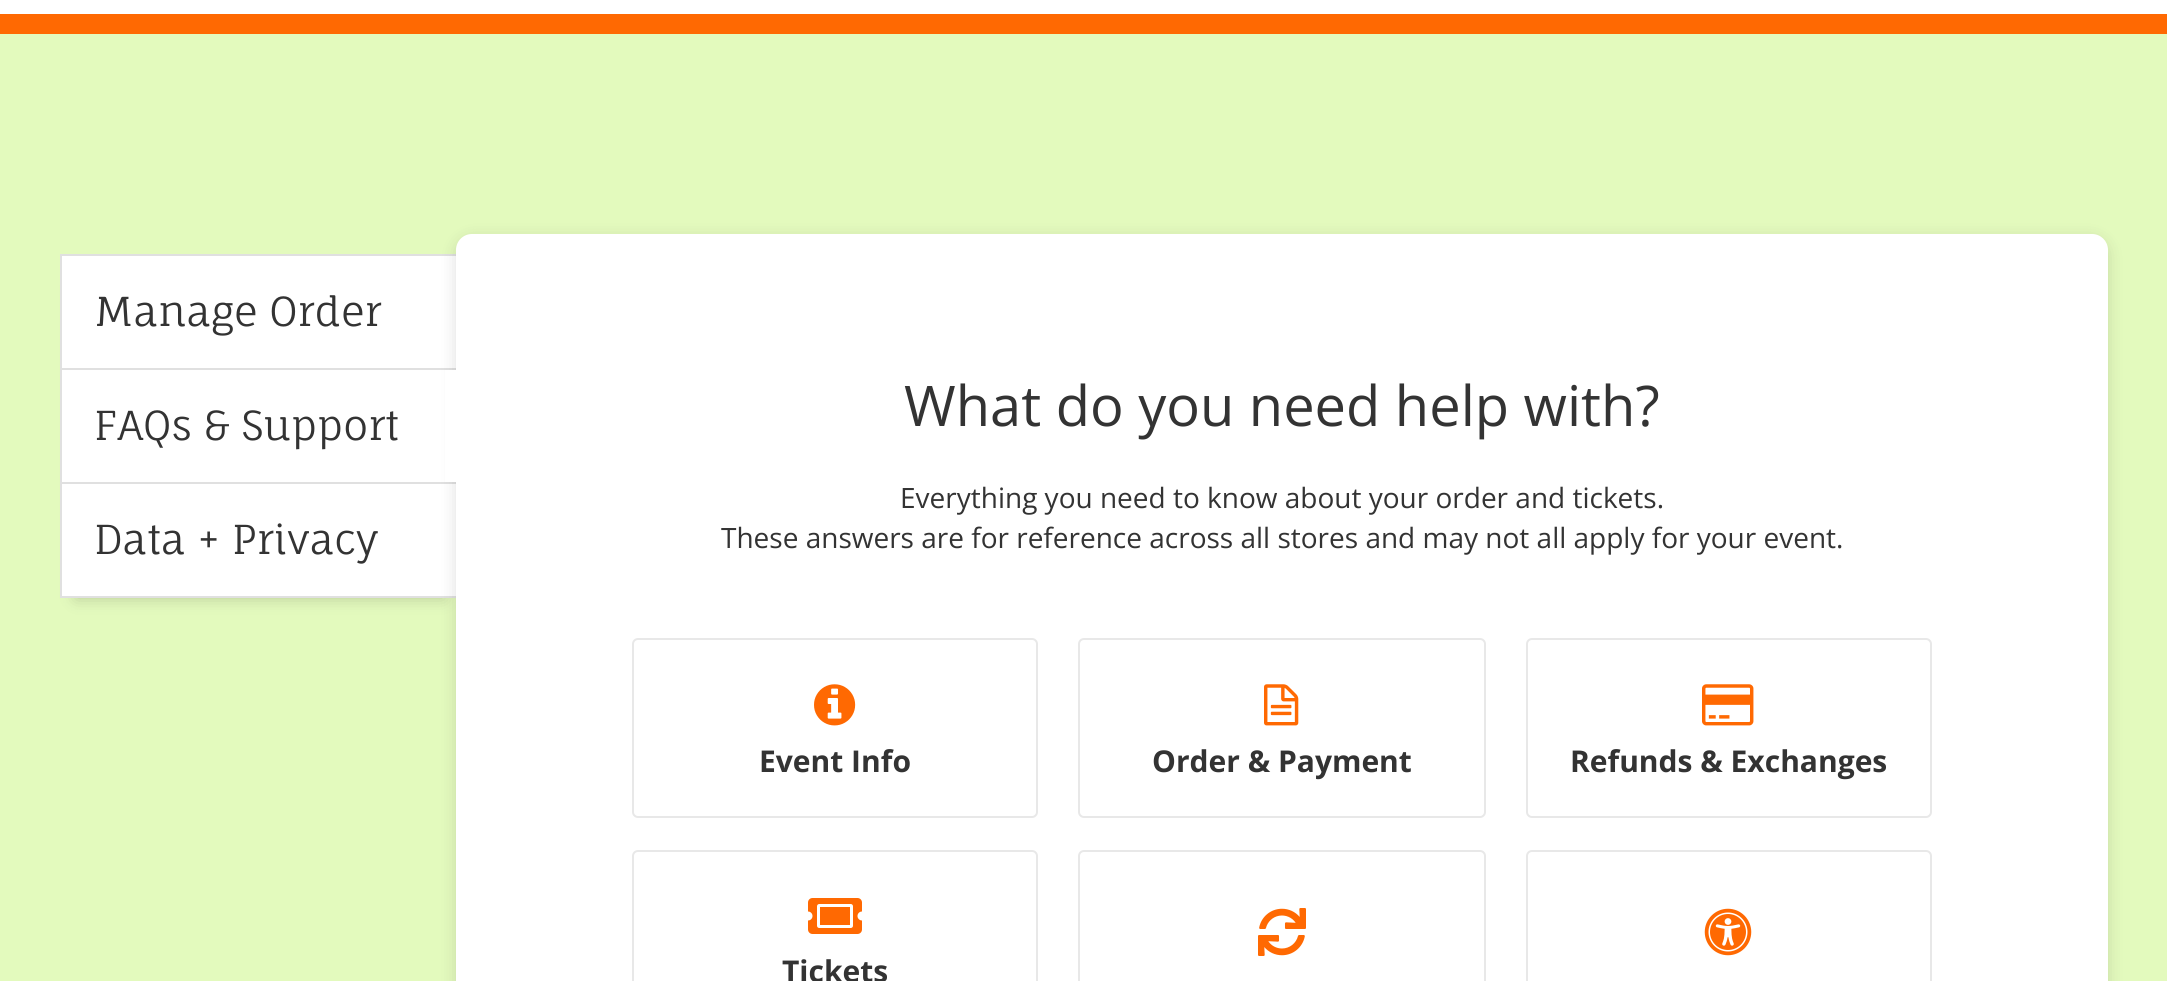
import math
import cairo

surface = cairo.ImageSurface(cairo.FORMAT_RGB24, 2167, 981)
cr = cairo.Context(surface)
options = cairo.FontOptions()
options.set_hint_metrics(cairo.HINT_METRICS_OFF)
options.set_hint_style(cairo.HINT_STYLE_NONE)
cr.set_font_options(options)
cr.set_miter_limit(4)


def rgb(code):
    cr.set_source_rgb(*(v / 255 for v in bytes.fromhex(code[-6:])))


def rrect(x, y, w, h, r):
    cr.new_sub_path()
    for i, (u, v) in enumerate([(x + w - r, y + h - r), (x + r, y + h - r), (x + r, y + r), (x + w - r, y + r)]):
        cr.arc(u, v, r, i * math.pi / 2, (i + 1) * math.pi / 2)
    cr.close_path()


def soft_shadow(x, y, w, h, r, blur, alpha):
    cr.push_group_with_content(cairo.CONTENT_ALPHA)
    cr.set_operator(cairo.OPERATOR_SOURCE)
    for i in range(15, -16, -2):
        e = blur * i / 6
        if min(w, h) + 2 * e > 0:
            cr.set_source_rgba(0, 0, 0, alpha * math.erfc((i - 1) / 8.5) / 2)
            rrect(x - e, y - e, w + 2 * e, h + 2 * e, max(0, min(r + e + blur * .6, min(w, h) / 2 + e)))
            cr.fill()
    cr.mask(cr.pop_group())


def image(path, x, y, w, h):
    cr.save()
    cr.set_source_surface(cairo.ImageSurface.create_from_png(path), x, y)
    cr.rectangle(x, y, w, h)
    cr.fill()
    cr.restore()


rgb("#ffffff")
cr.paint()
rgb("#ff6902")
cr.rectangle(0, 14, 2167, 20)
cr.fill()
rgb("#e3fabd")
cr.rectangle(0, 34, 2167, 947)
cr.fill()
rgb("#000000")
soft_shadow(76, 286, 368, 312, 0, 8, 0.2)
rgb("#ffffff")
cr.rectangle(62, 256, 394, 340)
cr.fill()
cr.rectangle(61, 255, 398, 342)
rgb("#e0e0e0")
cr.stroke()
cr.rectangle(62, 368, 396, 2)
cr.fill()
cr.rectangle(62, 482, 396, 2)
cr.fill()
rgb("#000000")
soft_shadow(456, 238, 1652, 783, 16, 8, 0.13)
rgb("#ffffff")
cr.rectangle(445, 370, 11, 112)
cr.fill()
rrect(456, 234, 1652, 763, 16)
cr.fill()
rrect(633, 639, 404, 178, 5)
rgb("#e8e8e8")
cr.stroke()
image("img/1.png", 814, 684, 42, 42)
rrect(1079, 639, 406, 178, 5)
cr.stroke()
image("img/2.png", 1264, 684, 35, 42)
rrect(1527, 639, 404, 178, 5)
cr.stroke()
image("img/3.png", 1702, 684, 52, 42)
rrect(633, 851, 404, 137, 5)
cr.stroke()
image("img/4.png", 808, 898, 54, 36)
rrect(1079, 851, 406, 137, 5)
cr.stroke()
image("img/5.png", 1258, 908, 48, 48)
rrect(1527, 851, 404, 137, 5)
cr.stroke()
image("img/6.png", 1704, 908, 48, 48)
cr.select_font_face("Fauna One")
cr.set_font_size(40)
rgb("#333333")
for x, y, s in [
    (94, 326, "Manage Order"),
    (94, 440, "FAQs & Support"),
    (94, 554, "Data + Privacy"),
]:
    cr.move_to(x, y)
    cr.show_text(s)
cr.select_font_face("Open Sans")
cr.set_font_size(56)
cr.move_to(904, 426)
cr.show_text("What do you need help with?")
cr.set_font_size(28)
cr.move_to(900, 508)
cr.show_text("Everything you need to know about your order and tickets.")
cr.move_to(721, 548)
cr.show_text("These answers are for reference across all stores and may not all apply for your event.")
cr.select_font_face("Open Sans", cairo.FONT_SLANT_NORMAL, cairo.FONT_WEIGHT_BOLD)
cr.set_font_size(30)
for x, y, s in [
    (759, 772, "Event Info"),
    (1152, 772, "Order & Payment"),
    (1570, 772, "Refunds & Exchanges"),
    (782, 982, "Tickets"),
]:
    cr.move_to(x, y)
    cr.show_text(s)
surface.write_to_png("page.png")
